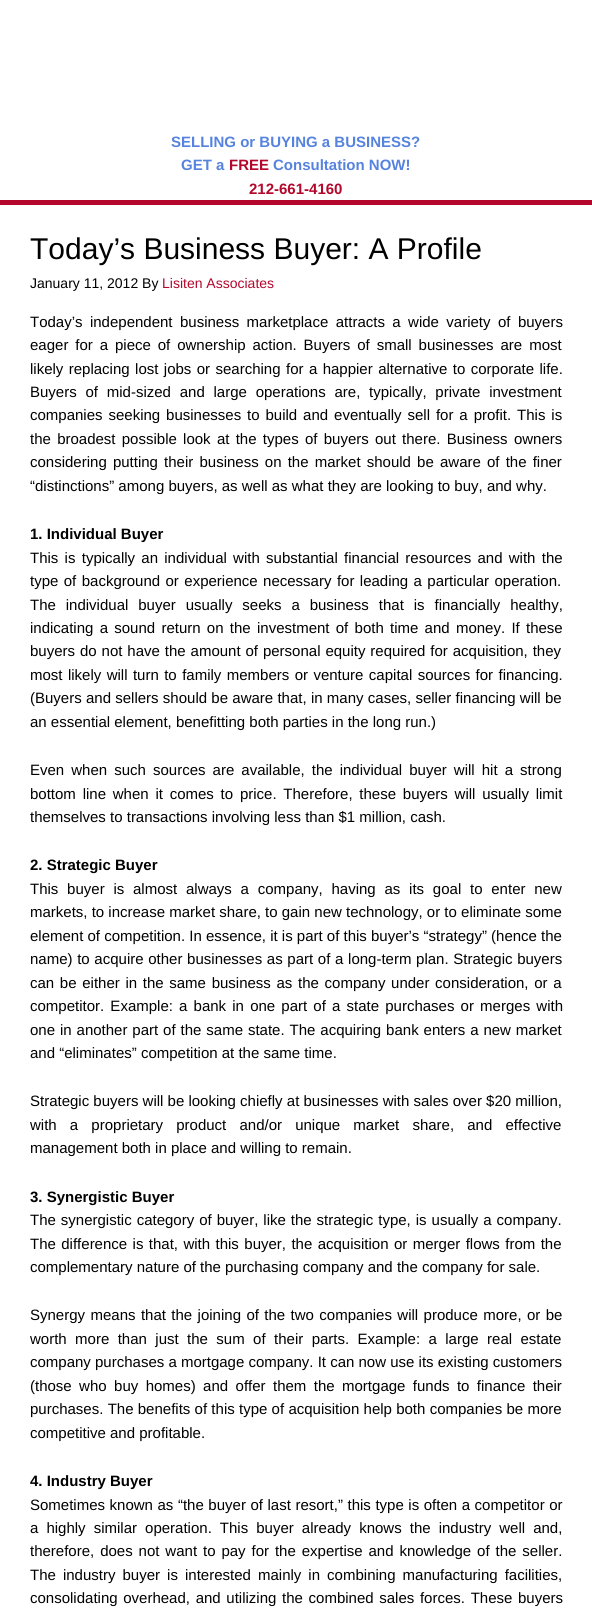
import math
import cairo

surface = cairo.ImageSurface(cairo.FORMAT_RGB24, 592, 1618)
cr = cairo.Context(surface)
options = cairo.FontOptions()
options.set_hint_metrics(cairo.HINT_METRICS_OFF)
options.set_hint_style(cairo.HINT_STYLE_NONE)
cr.set_font_options(options)
cr.set_miter_limit(4)


def rgb(code):
    cr.set_source_rgb(*(v / 255 for v in bytes.fromhex(code[-6:])))


def tracked(x, y, s, letter, word):
    cr.move_to(x, y)
    for ch in s:
        cr.show_text(ch)
        cr.rel_move_to(letter + word * (ch == ' '), 0)


rgb("#ffffff")
cr.paint()
rgb("#b3072c")
cr.rectangle(0, 200, 592, 5)
cr.fill()
cr.select_font_face("Liberation Sans", cairo.FONT_SLANT_NORMAL, cairo.FONT_WEIGHT_BOLD)
cr.set_font_size(15)
rgb("#5683de")
cr.move_to(171, 147)
cr.show_text("SELLING or BUYING a BUSINESS?")
cr.move_to(181, 170)
cr.show_text("GET a")
rgb("#b3072c")
cr.move_to(229, 170)
cr.show_text("FREE")
rgb("#5683de")
cr.move_to(273, 170)
cr.show_text("Consultation NOW!")
rgb("#b3072c")
cr.move_to(249, 194)
cr.show_text("212-661-4160")
cr.select_font_face("Liberation Sans")
cr.set_font_size(30)
rgb("#000000")
cr.move_to(30, 259)
cr.show_text("Today’s Business Buyer: A Profile")
cr.set_font_size(14)
cr.move_to(30, 288)
cr.show_text("January 11, 2012 By")
rgb("#b3072c")
cr.move_to(162, 288)
cr.show_text("Lisiten Associates")
cr.set_font_size(15)
rgb("#000000")
tracked(30, 327, "Today’s independent business marketplace attracts a wide variety of buyers", 0, 3.25)
tracked(30, 350, "eager for a piece of ownership action. Buyers of small businesses are most", 0, 2.75)
tracked(30, 374, "likely replacing lost jobs or searching for a happier alternative to corporate life.", 0, 1.25)
tracked(30, 397, "Buyers of mid-sized and large operations are, typically, private investment", 0, 4.6)
tracked(30, 420, "companies seeking businesses to build and eventually sell for a profit. This is", 0, 1.75)
tracked(30, 444, "the broadest possible look at the types of buyers out there. Business owners", 0, 2.1)
tracked(30, 467, "considering putting their business on the market should be aware of the finer", 0, 2)
cr.move_to(30, 491)
cr.show_text("“distinctions” among buyers, as well as what they are looking to buy, and why.")
cr.select_font_face("Liberation Sans", cairo.FONT_SLANT_NORMAL, cairo.FONT_WEIGHT_BOLD)
cr.move_to(30, 539)
cr.show_text("1. Individual Buyer")
cr.select_font_face("Liberation Sans")
tracked(30, 563, "This is typically an individual with substantial financial resources and with the", 0, 2.1)
tracked(30, 586, "type of background or experience necessary for leading a particular operation.", 0, 1.25)
tracked(30, 610, "The individual buyer usually seeks a business that is financially healthy,", 0, 5.75)
tracked(30, 633, "indicating a sound return on the investment of both time and money. If these", 0, 2.1)
tracked(30, 656, "buyers do not have the amount of personal equity required for acquisition, they", 0, 0.75)
tracked(30, 680, "most likely will turn to family members or venture capital sources for financing.", 0, 1.25)
tracked(30, 703, "(Buyers and sellers should be aware that, in many cases, seller financing will be", 0, 0.1)
cr.move_to(30, 727)
cr.show_text("an essential element, benefitting both parties in the long run.)")
tracked(30, 775, "Even when such sources are available, the individual buyer will hit a strong", 0, 2.9)
tracked(30, 799, "bottom line when it comes to price. Therefore, these buyers will usually limit", 0, 2.6)
cr.move_to(30, 822)
cr.show_text("themselves to transactions involving less than $1 million, cash.")
cr.select_font_face("Liberation Sans", cairo.FONT_SLANT_NORMAL, cairo.FONT_WEIGHT_BOLD)
cr.move_to(30, 870)
cr.show_text("2. Strategic Buyer")
cr.select_font_face("Liberation Sans")
tracked(30, 894, "This buyer is almost always a company, having as its goal to enter new", 0, 4.6)
cr.move_to(30, 917)
cr.show_text("markets, to increase market share, to gain new technology, or to eliminate some")
cr.move_to(30, 941)
cr.show_text("element of competition. In essence, it is part of this buyer’s “strategy” (hence the")
tracked(30, 964, "name) to acquire other businesses as part of a long-term plan. Strategic buyers", 0, 0.5)
tracked(30, 988, "can be either in the same business as the company under consideration, or a", 0, 1.5)
tracked(30, 1011, "competitor. Example: a bank in one part of a state purchases or merges with", 0, 2)
tracked(30, 1035, "one in another part of the same state. The acquiring bank enters a new market", 0, 0.75)
cr.move_to(30, 1058)
cr.show_text("and “eliminates” competition at the same time.")
cr.move_to(30, 1106)
cr.show_text("Strategic buyers will be looking chiefly at businesses with sales over $20 million,")
tracked(30, 1130, "with a proprietary product and/or unique market share, and effective", 0, 9)
cr.move_to(30, 1153)
cr.show_text("management both in place and willing to remain.")
cr.select_font_face("Liberation Sans", cairo.FONT_SLANT_NORMAL, cairo.FONT_WEIGHT_BOLD)
cr.move_to(30, 1202)
cr.show_text("3. Synergistic Buyer")
cr.select_font_face("Liberation Sans")
tracked(30, 1225, "The synergistic category of buyer, like the strategic type, is usually a company.", 0, 0.8)
tracked(30, 1249, "The difference is that, with this buyer, the acquisition or merger flows from the", 0, 1.25)
cr.move_to(30, 1272)
cr.show_text("complementary nature of the purchasing company and the company for sale.")
tracked(30, 1320, "Synergy means that the joining of the two companies will produce more, or be", 0, 1.25)
tracked(30, 1344, "worth more than just the sum of their parts. Example: a large real estate", 0, 4.25)
cr.move_to(30, 1367)
cr.show_text("company purchases a mortgage company. It can now use its existing customers")
tracked(30, 1391, "(those who buy homes) and offer them the mortgage funds to finance their", 0, 3.25)
tracked(30, 1414, "purchases. The benefits of this type of acquisition help both companies be more", 0, 0.1)
cr.move_to(30, 1438)
cr.show_text("competitive and profitable.")
cr.select_font_face("Liberation Sans", cairo.FONT_SLANT_NORMAL, cairo.FONT_WEIGHT_BOLD)
cr.move_to(30, 1486)
cr.show_text("4. Industry Buyer")
cr.select_font_face("Liberation Sans")
tracked(30, 1510, "Sometimes known as “the buyer of last resort,” this type is often a competitor or", 0, 0.4)
tracked(30, 1533, "a highly similar operation. This buyer already knows the industry well and,", 0, 3.9)
tracked(30, 1556, "therefore, does not want to pay for the expertise and knowledge of the seller.", 0, 1.75)
tracked(30, 1580, "The industry buyer is interested mainly in combining manufacturing facilities,", 0, 2.9)
tracked(30, 1603, "consolidating overhead, and utilizing the combined sales forces. These buyers", 0, 1.5)
surface.write_to_png("page.png")
